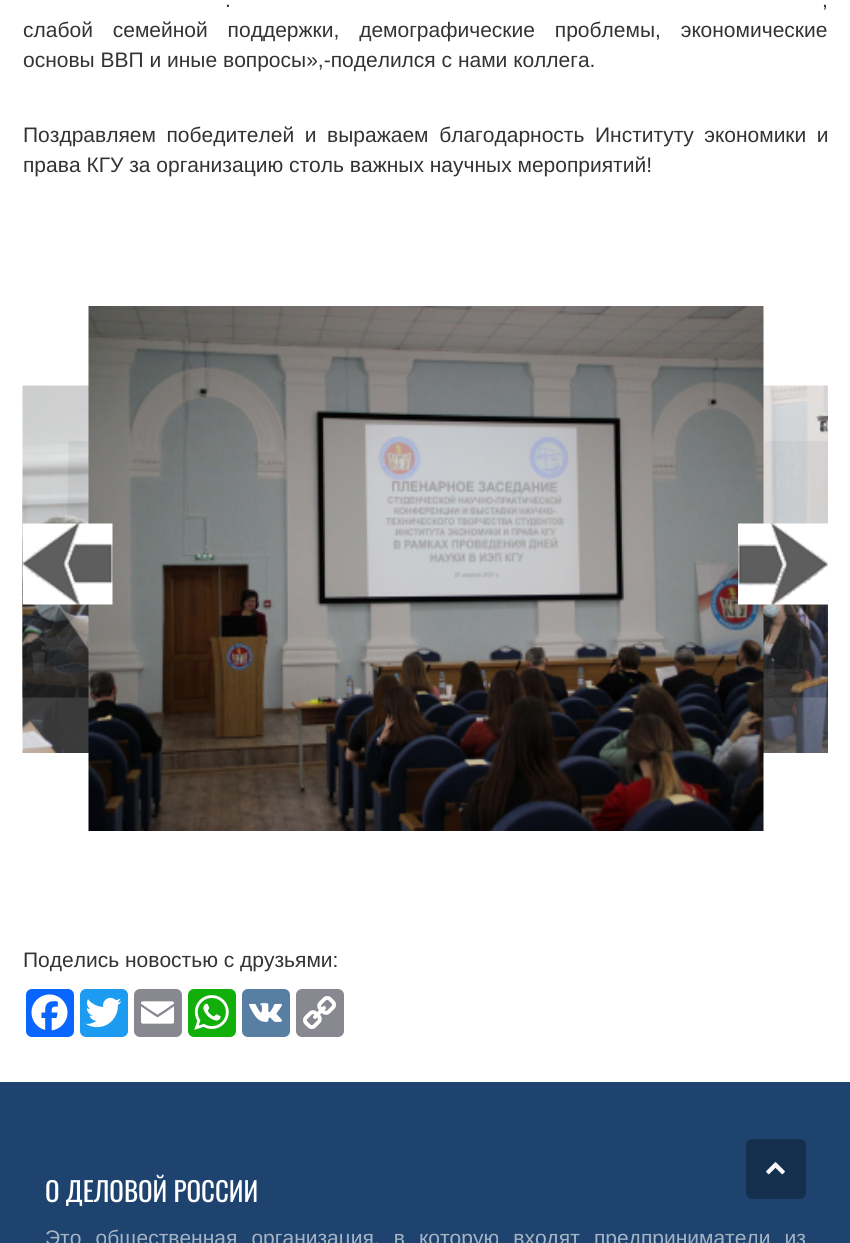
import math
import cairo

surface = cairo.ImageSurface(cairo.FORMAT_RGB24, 850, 1243)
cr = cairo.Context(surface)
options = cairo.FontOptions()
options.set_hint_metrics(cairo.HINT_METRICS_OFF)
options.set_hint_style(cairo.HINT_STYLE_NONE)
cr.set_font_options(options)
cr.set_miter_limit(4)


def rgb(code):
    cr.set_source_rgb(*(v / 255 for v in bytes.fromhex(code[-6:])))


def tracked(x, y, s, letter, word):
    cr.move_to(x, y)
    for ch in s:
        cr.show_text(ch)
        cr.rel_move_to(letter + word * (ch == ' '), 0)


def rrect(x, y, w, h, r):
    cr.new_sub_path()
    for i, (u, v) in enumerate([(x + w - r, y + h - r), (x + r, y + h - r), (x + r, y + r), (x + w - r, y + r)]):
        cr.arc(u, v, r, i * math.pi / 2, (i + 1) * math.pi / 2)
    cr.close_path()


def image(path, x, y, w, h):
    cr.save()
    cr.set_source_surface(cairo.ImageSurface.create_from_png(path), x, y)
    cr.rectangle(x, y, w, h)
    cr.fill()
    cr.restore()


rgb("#ffffff")
cr.paint()
image("img/6.png", 22, 478, 5, 181)
image("img/4.png", 22, 441, 67, 257)
image("img/1.png", 22, 385, 67, 368)
image("img/7.png", 823, 478, 5, 181)
image("img/5.png", 763, 441, 65, 257)
image("img/3.png", 763, 385, 65, 368)
image("img/2.png", 88, 306, 676, 525)
image("img/8.png", 22, 523, 91, 82)
image("img/9.png", 738, 523, 90, 82)
rgb("#0866ff")
rrect(26, 989, 48, 48, 6)
cr.fill()
image("img/10.png", 31, 994, 37, 37)
rgb("#1d9bf0")
rrect(80, 989, 48, 48, 6)
cr.fill()
image("img/11.png", 85, 997, 37, 31)
rgb("#888990")
rrect(134, 989, 48, 48, 6)
cr.fill()
image("img/12.png", 141, 1001, 33, 23)
rgb("#12af0a")
rrect(188, 989, 48, 48, 6)
cr.fill()
image("img/13.png", 194, 995, 35, 35)
rgb("#587ea3")
rrect(242, 989, 48, 48, 6)
cr.fill()
image("img/14.png", 249, 1003, 33, 19)
rgb("#888990")
rrect(296, 989, 48, 48, 6)
cr.fill()
image("img/15.png", 303, 996, 33, 33)
rgb("#1e436e")
cr.rectangle(0, 1082, 850, 161)
cr.fill()
rgb("#152f4e")
rrect(746, 1139, 60, 60, 6)
cr.fill()
image("img/16.png", 766, 1162, 19, 13)
cr.select_font_face("Liberation Sans")
cr.set_font_size(21)
rgb("#333333")
tracked(225, 7, ".", 0, 8)
tracked(822, 7, ",", 0, 8)
tracked(23, 37, "слабой семейной поддержки, демографические проблемы, экономические", 0, 14)
cr.move_to(23, 67)
cr.show_text("основы ВВП и иные вопросы»,-поделился с нами коллега.")
tracked(23, 142, "Поздравляем победителей и выражаем благодарность Институту экономики и", 0, 4.75)
cr.move_to(23, 172)
cr.show_text("права КГУ за организацию столь важных научных мероприятий!")
cr.move_to(23, 967)
cr.show_text("Поделись новостью с друзьями:")
cr.select_font_face("Oswald")
cr.set_font_size(27)
rgb("#ffffff")
cr.move_to(45, 1202)
cr.show_text("О ДЕЛОВОЙ РОССИИ")
cr.select_font_face("Liberation Sans")
cr.set_font_size(21)
rgb("#a5b4c5")
tracked(45, 1245, "Это общественная организация, в которую входят предприниматели из", 0, 8.25)
surface.write_to_png("page.png")
